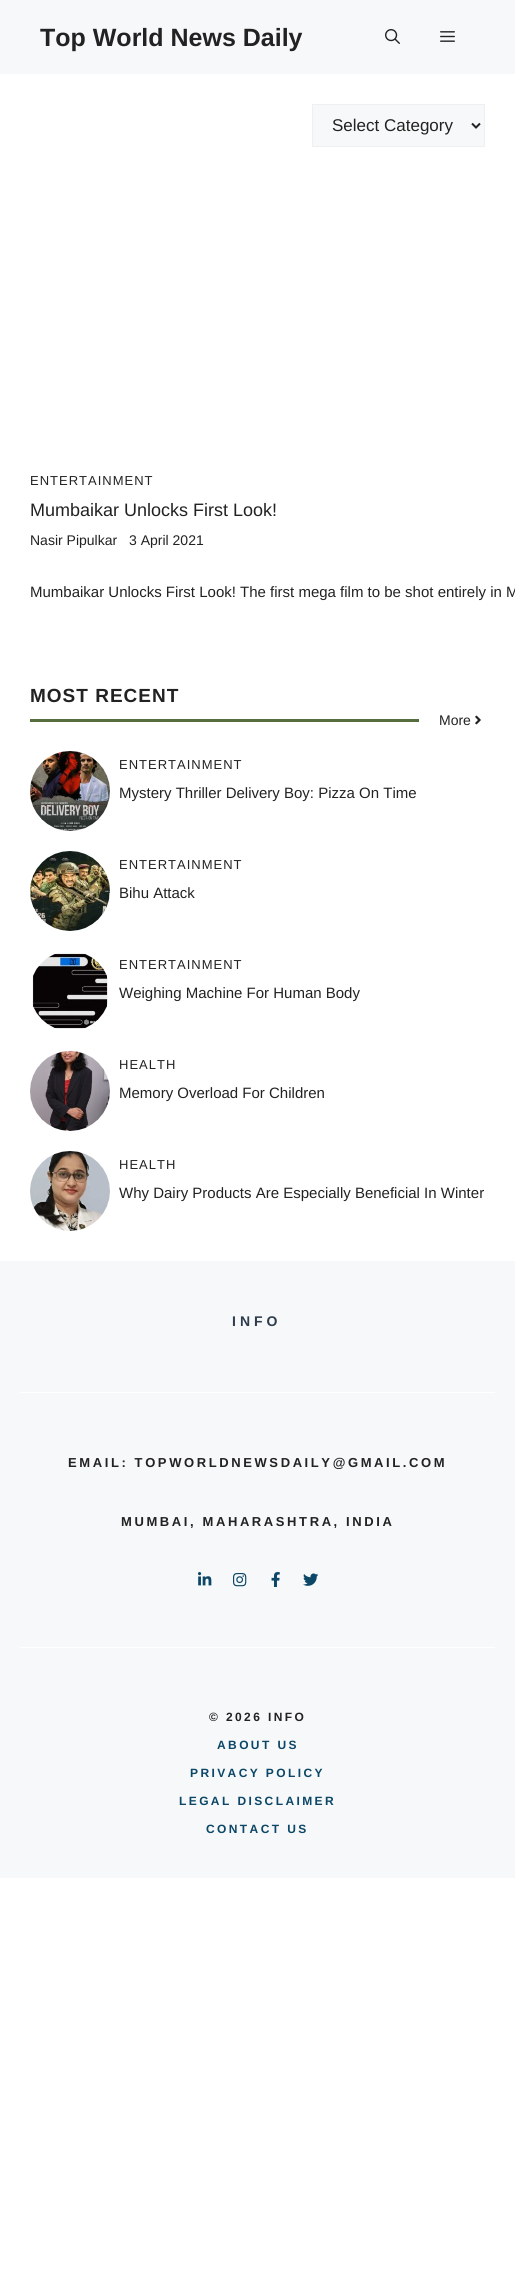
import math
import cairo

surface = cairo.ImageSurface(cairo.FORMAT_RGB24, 515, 2272)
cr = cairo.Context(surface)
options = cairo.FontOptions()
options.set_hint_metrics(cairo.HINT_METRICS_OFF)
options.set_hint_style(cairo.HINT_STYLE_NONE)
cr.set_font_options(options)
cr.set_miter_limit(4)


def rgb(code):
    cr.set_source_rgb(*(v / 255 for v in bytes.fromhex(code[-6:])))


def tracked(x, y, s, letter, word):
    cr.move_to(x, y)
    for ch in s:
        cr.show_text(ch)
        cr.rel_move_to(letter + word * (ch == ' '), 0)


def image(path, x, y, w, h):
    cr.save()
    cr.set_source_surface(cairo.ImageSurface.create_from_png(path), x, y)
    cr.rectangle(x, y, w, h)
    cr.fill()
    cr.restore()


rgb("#ffffff")
cr.paint()
rgb("#f7f8f9")
cr.rectangle(0, 0, 515, 74)
cr.fill()
image("img/1.png", 385, 29, 15, 15)
image("img/2.png", 440, 31, 15, 11)
cr.rectangle(312.5, 104.5, 172, 42)
cr.fill_preserve()
rgb("#f0f0f0")
cr.set_line_width(1)
cr.stroke()
cr.new_path()
cr.move_to(472, 123.5)
cr.line_to(476, 127.5)
cr.line_to(480, 123.5)
rgb("#222222")
cr.set_line_width(2)
cr.stroke()
rgb("#566e3d")
cr.rectangle(30, 719, 389, 3)
cr.fill()
image("img/3.png", 475, 715, 6, 10)
image("img/4.png", 30, 751, 80, 80)
image("img/5.png", 30, 851, 80, 80)
image("img/6.png", 32, 951, 76, 78)
image("img/7.png", 30, 1051, 80, 80)
image("img/8.png", 30, 1151, 80, 80)
for x, y, w, h, color in [
    (0, 1261, 515, 617, "#f7f8f9"),
    (20, 1392, 475, 1, "#ffffff"),
    (20, 1647, 475, 1, "#ffffff"),
]:
    rgb(color)
    cr.rectangle(x, y, w, h)
    cr.fill()
image("img/9.png", 198, 1572, 14, 14)
image("img/10.png", 233, 1573, 14, 14)
image("img/11.png", 271, 1572, 9, 15)
image("img/12.png", 303, 1573, 15, 13)
cr.select_font_face("Liberation Sans", cairo.FONT_SLANT_NORMAL, cairo.FONT_WEIGHT_BOLD)
cr.set_font_size(25)
rgb("#222222")
cr.move_to(40, 46)
cr.show_text("Top World News Daily")
cr.select_font_face("Liberation Sans")
cr.set_font_size(17)
cr.move_to(332, 131)
cr.show_text("Select Category")
cr.set_font_size(13)
tracked(30, 485, "ENTERTAINMENT", 1, 0)
cr.set_font_size(18)
cr.move_to(30, 516)
cr.show_text("Mumbaikar Unlocks First Look!")
cr.set_font_size(14)
cr.move_to(30, 545)
cr.show_text("Nasir Pipulkar")
cr.move_to(129, 545)
cr.show_text("3 April 2021")
cr.set_font_size(15)
cr.move_to(30, 597)
cr.show_text("Mumbaikar Unlocks First Look! The first mega film to be shot entirely in M")
cr.select_font_face("Liberation Sans", cairo.FONT_SLANT_NORMAL, cairo.FONT_WEIGHT_BOLD)
cr.set_font_size(19)
tracked(30, 702, "MOST RECENT", 1, 0)
cr.select_font_face("Liberation Sans")
cr.set_font_size(14)
cr.move_to(439, 725)
cr.show_text("More")
cr.set_font_size(13)
tracked(119, 769, "ENTERTAINMENT", 1, 0)
cr.set_font_size(15)
cr.move_to(119, 798)
cr.show_text("Mystery Thriller Delivery Boy: Pizza On Time")
cr.set_font_size(13)
tracked(119, 869, "ENTERTAINMENT", 1, 0)
cr.set_font_size(15)
cr.move_to(119, 898)
cr.show_text("Bihu Attack")
cr.set_font_size(13)
tracked(119, 969, "ENTERTAINMENT", 1, 0)
cr.set_font_size(15)
cr.move_to(119, 998)
cr.show_text("Weighing Machine For Human Body")
cr.set_font_size(13)
tracked(119, 1069, "HEALTH", 1, 0)
cr.set_font_size(15)
cr.move_to(119, 1098)
cr.show_text("Memory Overload For Children")
cr.set_font_size(13)
tracked(119, 1169, "HEALTH", 1, 0)
cr.set_font_size(15)
cr.move_to(119, 1198)
cr.show_text("Why Dairy Products Are Especially Beneficial In Winter")
cr.select_font_face("Liberation Sans", cairo.FONT_SLANT_NORMAL, cairo.FONT_WEIGHT_BOLD)
cr.set_font_size(14)
rgb("#2e3d4d")
tracked(232, 1326, "INFO", 4, 0)
cr.set_font_size(13)
rgb("#222222")
tracked(68, 1467, "EMAIL: TOPWORLDNEWSDAILY@GMAIL.COM", 2.6, 0)
tracked(121, 1526, "MUMBAI, MAHARASHTRA, INDIA", 2.6, 0)
cr.set_font_size(12)
tracked(209, 1721, "© 2026 INFO", 2.4, 0)
rgb("#0c4767")
for x, y, s in [
    (217, 1749, "ABOUT US"),
    (190, 1777, "PRIVACY POLICY"),
    (179, 1805, "LEGAL DISCLAIMER"),
    (206, 1833, "CONTACT US"),
]:
    tracked(x, y, s, 2.4, 0)
surface.write_to_png("page.png")
